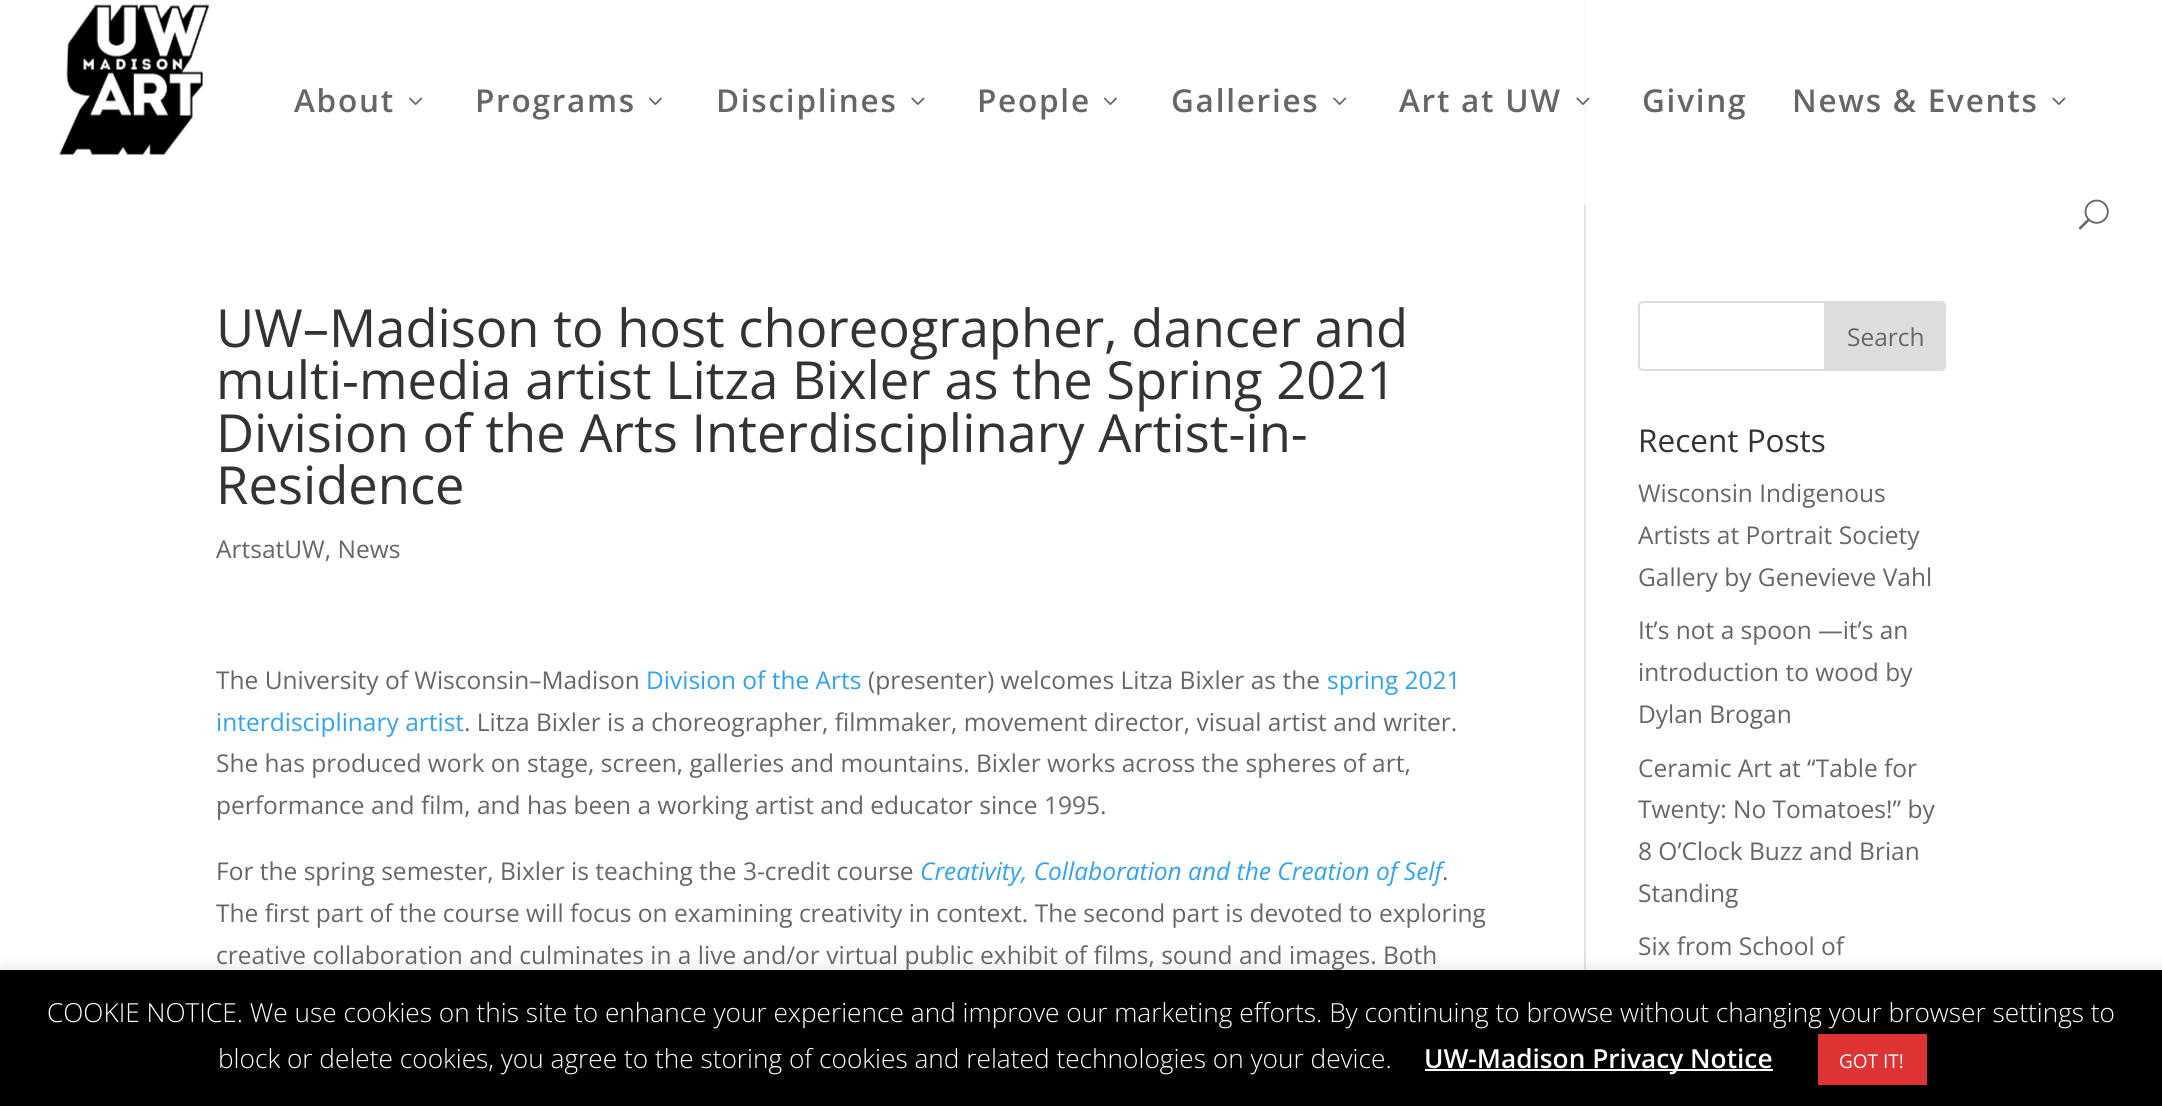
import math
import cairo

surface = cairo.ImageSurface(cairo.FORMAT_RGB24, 2162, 1106)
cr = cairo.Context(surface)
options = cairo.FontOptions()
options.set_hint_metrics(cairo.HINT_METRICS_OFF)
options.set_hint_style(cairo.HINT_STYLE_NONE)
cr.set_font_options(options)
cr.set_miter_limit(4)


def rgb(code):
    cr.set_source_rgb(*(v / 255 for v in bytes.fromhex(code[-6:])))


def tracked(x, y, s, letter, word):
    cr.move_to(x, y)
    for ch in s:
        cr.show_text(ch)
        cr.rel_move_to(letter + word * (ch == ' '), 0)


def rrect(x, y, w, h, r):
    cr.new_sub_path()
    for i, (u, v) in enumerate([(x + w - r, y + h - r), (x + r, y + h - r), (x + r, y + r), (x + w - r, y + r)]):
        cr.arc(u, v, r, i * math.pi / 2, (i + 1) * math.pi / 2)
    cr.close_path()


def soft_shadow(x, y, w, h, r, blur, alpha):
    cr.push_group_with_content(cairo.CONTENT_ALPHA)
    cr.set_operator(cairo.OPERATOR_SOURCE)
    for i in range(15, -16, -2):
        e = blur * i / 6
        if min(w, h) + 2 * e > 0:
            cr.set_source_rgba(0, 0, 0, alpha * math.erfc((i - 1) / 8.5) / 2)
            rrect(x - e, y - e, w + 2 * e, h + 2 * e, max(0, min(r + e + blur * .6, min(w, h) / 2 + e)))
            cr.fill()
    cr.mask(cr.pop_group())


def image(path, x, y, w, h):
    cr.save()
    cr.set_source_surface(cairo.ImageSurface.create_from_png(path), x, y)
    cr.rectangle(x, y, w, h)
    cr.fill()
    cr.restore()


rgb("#ffffff")
cr.paint()
image("img/1.png", 59, 4, 150, 151)
image("img/2.png", 409, 97, 14, 8)
image("img/3.png", 648, 97, 14, 8)
image("img/4.png", 911, 97, 14, 8)
image("img/3.png", 1103, 97, 14, 8)
image("img/2.png", 1333, 97, 14, 8)
rgb("#f9f9f9")
cr.rectangle(1584, 0, 2, 205)
cr.fill()
image("img/5.png", 1576, 97, 14, 8)
image("img/4.png", 2052, 97, 14, 8)
image("img/6.png", 2078, 199, 31, 31)
rgb("#e2e2e2")
cr.rectangle(1584, 205, 2, 765)
cr.fill()
rrect(1639, 302, 306, 68, 4)
rgb("#dddddd")
cr.stroke()
cr.new_path()
cr.move_to(1825, 302)
cr.line_to(1941, 302)
cr.curve_to(1943, 302, 1945, 304, 1945, 306)
cr.line_to(1945, 366)
cr.curve_to(1945, 368, 1943, 370, 1941, 370)
cr.line_to(1825, 370)
cr.close_path()
cr.fill_preserve()
cr.stroke()
rgb("#acabab")
soft_shadow(0, 968, 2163, 136, 0, 9, 0.3)
for x, y, w, h, color in [
    (0, 970, 2162, 136, "#000000"),
    (1425, 1069, 348, 2, "#ffffff"),
    (1818, 1034, 109, 51, "#dd3333"),
]:
    rgb(color)
    cr.rectangle(x, y, w, h)
    cr.fill()
cr.select_font_face("Open Sans SemiBold")
cr.set_font_size(31.5)
rgb("#666666")
for x, y, s in [
    (294, 112, "About"),
    (475, 112, "Programs"),
    (716, 112, "Disciplines"),
    (977, 112, "People"),
    (1171, 112, "Galleries"),
    (1399, 112, "Art at UW"),
    (1642, 112, "Giving"),
    (1792, 112, "News & Events"),
]:
    tracked(x, y, s, 1.75, 0)
cr.select_font_face("Open Sans")
cr.set_font_size(52.5)
rgb("#333333")
for x, y, s in [
    (216, 347, "UW–Madison to host choreographer, dancer and"),
    (216, 399, "multi-media artist Litza Bixler as the Spring 2021"),
    (216, 452, "Division of the Arts Interdisciplinary Artist-in-"),
    (216, 504, "Residence"),
]:
    cr.move_to(x, y)
    cr.show_text(s)
cr.set_font_size(24.5)
rgb("#666666")
cr.move_to(216, 558)
cr.show_text("ArtsatUW, News")
cr.move_to(216, 689)
cr.show_text("The University of Wisconsin–Madison")
rgb("#2ea3f2")
cr.move_to(646, 689)
cr.show_text("Division of the Arts")
rgb("#666666")
cr.move_to(868, 689)
cr.show_text("(presenter) welcomes Litza Bixler as the")
rgb("#2ea3f2")
cr.move_to(1327, 689)
cr.show_text("spring 2021")
cr.move_to(216, 731)
cr.show_text("interdisciplinary artist")
rgb("#666666")
for x, y, s in [
    (464, 731, ". Litza Bixler is a choreographer, filmmaker, movement director, visual artist and writer."),
    (216, 772, "She has produced work on stage, screen, galleries and mountains. Bixler works across the spheres of art,"),
    (216, 814, "performance and film, and has been a working artist and educator since 1995."),
    (216, 880, "For the spring semester, Bixler is teaching the 3-credit course"),
]:
    cr.move_to(x, y)
    cr.show_text(s)
cr.select_font_face("Open Sans", cairo.FONT_SLANT_ITALIC)
rgb("#2ea3f2")
cr.move_to(920, 880)
cr.show_text("Creativity, Collaboration and the Creation of Self")
cr.select_font_face("Open Sans")
rgb("#666666")
for x, y, s in [
    (1442, 880, "."),
    (216, 922, "The first part of the course will focus on examining creativity in context. The second part is devoted to exploring"),
    (216, 964, "creative collaboration and culminates in a live and/or virtual public exhibit of films, sound and images. Both"),
    (1847, 346, "Search"),
]:
    cr.move_to(x, y)
    cr.show_text(s)
cr.set_font_size(31.5)
rgb("#333333")
cr.move_to(1638, 452)
cr.show_text("Recent Posts")
cr.set_font_size(24.5)
rgb("#666666")
for x, y, s in [
    (1638, 502, "Wisconsin Indigenous"),
    (1638, 544, "Artists at Portrait Society"),
    (1638, 586, "Gallery by Genevieve Vahl"),
    (1638, 639, "It’s not a spoon —it’s an"),
    (1638, 681, "introduction to wood by"),
    (1638, 723, "Dylan Brogan"),
    (1638, 777, "Ceramic Art at “Table for"),
    (1638, 818, "Twenty: No Tomatoes!” by"),
    (1638, 860, "8 O’Clock Buzz and Brian"),
    (1638, 902, "Standing"),
    (1638, 955, "Six from School of"),
]:
    cr.move_to(x, y)
    cr.show_text(s)
cr.select_font_face("Open Sans Light")
cr.set_font_size(26.25)
rgb("#ffffff")
cr.move_to(47, 1022)
cr.show_text("COOKIE NOTICE. We use cookies on this site to enhance your experience and improve our marketing efforts. By continuing to browse without changing your browser settings to")
cr.move_to(218, 1068)
cr.show_text("block or delete cookies, you agree to the storing of cookies and related technologies on your device.")
cr.select_font_face("Open Sans SemiBold")
cr.move_to(1424, 1068)
cr.show_text("UW-Madison Privacy Notice")
cr.select_font_face("Open Sans")
cr.set_font_size(19)
cr.move_to(1839, 1068)
cr.show_text("GOT IT!")
surface.write_to_png("page.png")
